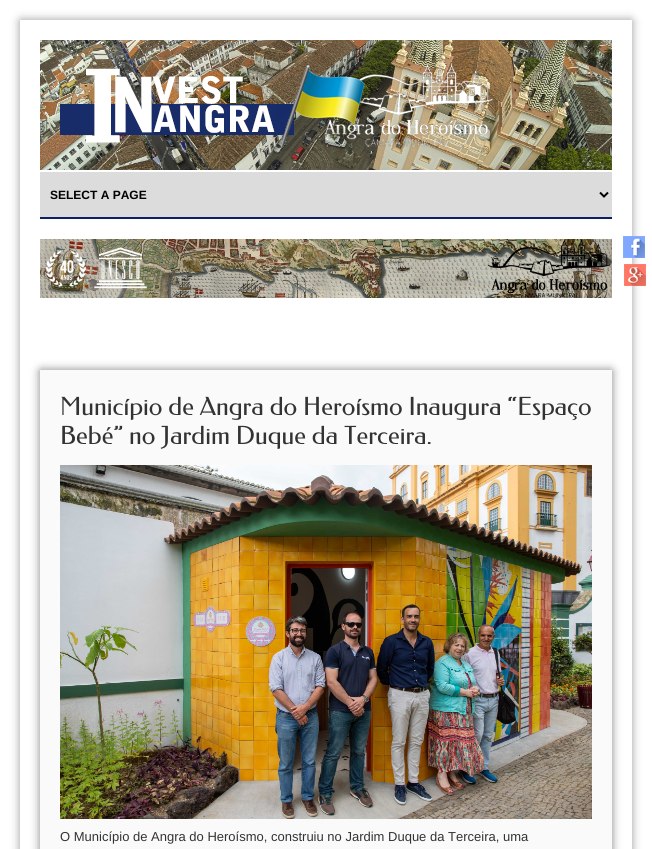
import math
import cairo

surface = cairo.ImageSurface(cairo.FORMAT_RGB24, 652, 849)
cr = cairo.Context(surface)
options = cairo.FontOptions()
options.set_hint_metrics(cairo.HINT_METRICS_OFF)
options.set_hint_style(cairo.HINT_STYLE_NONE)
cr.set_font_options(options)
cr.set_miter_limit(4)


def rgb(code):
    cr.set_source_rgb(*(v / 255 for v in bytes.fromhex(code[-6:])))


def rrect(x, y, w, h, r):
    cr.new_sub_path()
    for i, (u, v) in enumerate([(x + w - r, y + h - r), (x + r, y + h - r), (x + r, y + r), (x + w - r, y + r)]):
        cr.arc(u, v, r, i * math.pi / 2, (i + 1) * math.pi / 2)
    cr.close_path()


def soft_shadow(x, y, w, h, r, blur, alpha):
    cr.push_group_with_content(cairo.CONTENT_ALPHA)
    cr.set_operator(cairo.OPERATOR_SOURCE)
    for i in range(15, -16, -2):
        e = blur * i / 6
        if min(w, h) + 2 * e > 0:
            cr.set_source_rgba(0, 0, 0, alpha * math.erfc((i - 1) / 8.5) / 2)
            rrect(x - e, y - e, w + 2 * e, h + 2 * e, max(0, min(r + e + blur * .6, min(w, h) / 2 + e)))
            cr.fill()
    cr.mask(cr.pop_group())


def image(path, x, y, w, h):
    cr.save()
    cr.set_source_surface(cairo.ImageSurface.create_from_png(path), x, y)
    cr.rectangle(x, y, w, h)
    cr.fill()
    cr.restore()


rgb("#ffffff")
cr.paint()
cr.save()
cr.set_fill_rule(cairo.FILL_RULE_EVEN_ODD)
cr.new_path()
cr.move_to(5, 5)
cr.line_to(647, 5)
cr.line_to(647, 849)
cr.line_to(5, 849)
cr.close_path()
cr.move_to(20, 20)
cr.line_to(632, 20)
cr.line_to(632, 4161)
cr.line_to(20, 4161)
cr.close_path()
cr.clip()
rgb("#5d5d5d")
soft_shadow(21, 21, 610, 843, 0, 5, 0.77)
cr.restore()
image("img/1.png", 40, 40, 572, 130)
image("img/2.png", 60, 63, 434, 85)
rgb("#dcdcdc")
cr.rectangle(40, 172, 572, 45)
cr.fill()
rgb("#0b2161")
cr.rectangle(40, 217, 572, 2)
cr.fill()
cr.new_path()
cr.move_to(600, 192.5)
cr.line_to(604, 196.5)
cr.line_to(608, 192.5)
rgb("#000000")
cr.stroke()
image("img/3.png", 40, 239, 572, 59)
rgb("#666666")
soft_shadow(41, 371, 570, 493, 0, 5, 1)
rgb("#fafafa")
cr.rectangle(40, 370, 572, 479)
cr.fill()
image("img/4.png", 60, 465, 532, 354)
image("img/5.png", 623, 236, 22, 22)
image("img/6.png", 624, 264, 22, 22)
cr.select_font_face("Liberation Sans", cairo.FONT_SLANT_NORMAL, cairo.FONT_WEIGHT_BOLD)
cr.set_font_size(12)
rgb("#000000")
cr.move_to(50, 199)
cr.show_text("SELECT A PAGE")
cr.select_font_face("Federo")
cr.set_font_size(25)
rgb("#333333")
cr.move_to(60, 415)
cr.show_text("Município de Angra do Heroísmo Inaugura “Espaço")
cr.move_to(60, 444)
cr.show_text("Bebé” no Jardim Duque da Terceira.")
cr.select_font_face("Liberation Sans")
cr.set_font_size(13)
cr.move_to(60, 841)
cr.show_text("O Município de Angra do Heroísmo, construiu no Jardim Duque da Terceira, uma")
surface.write_to_png("page.png")
